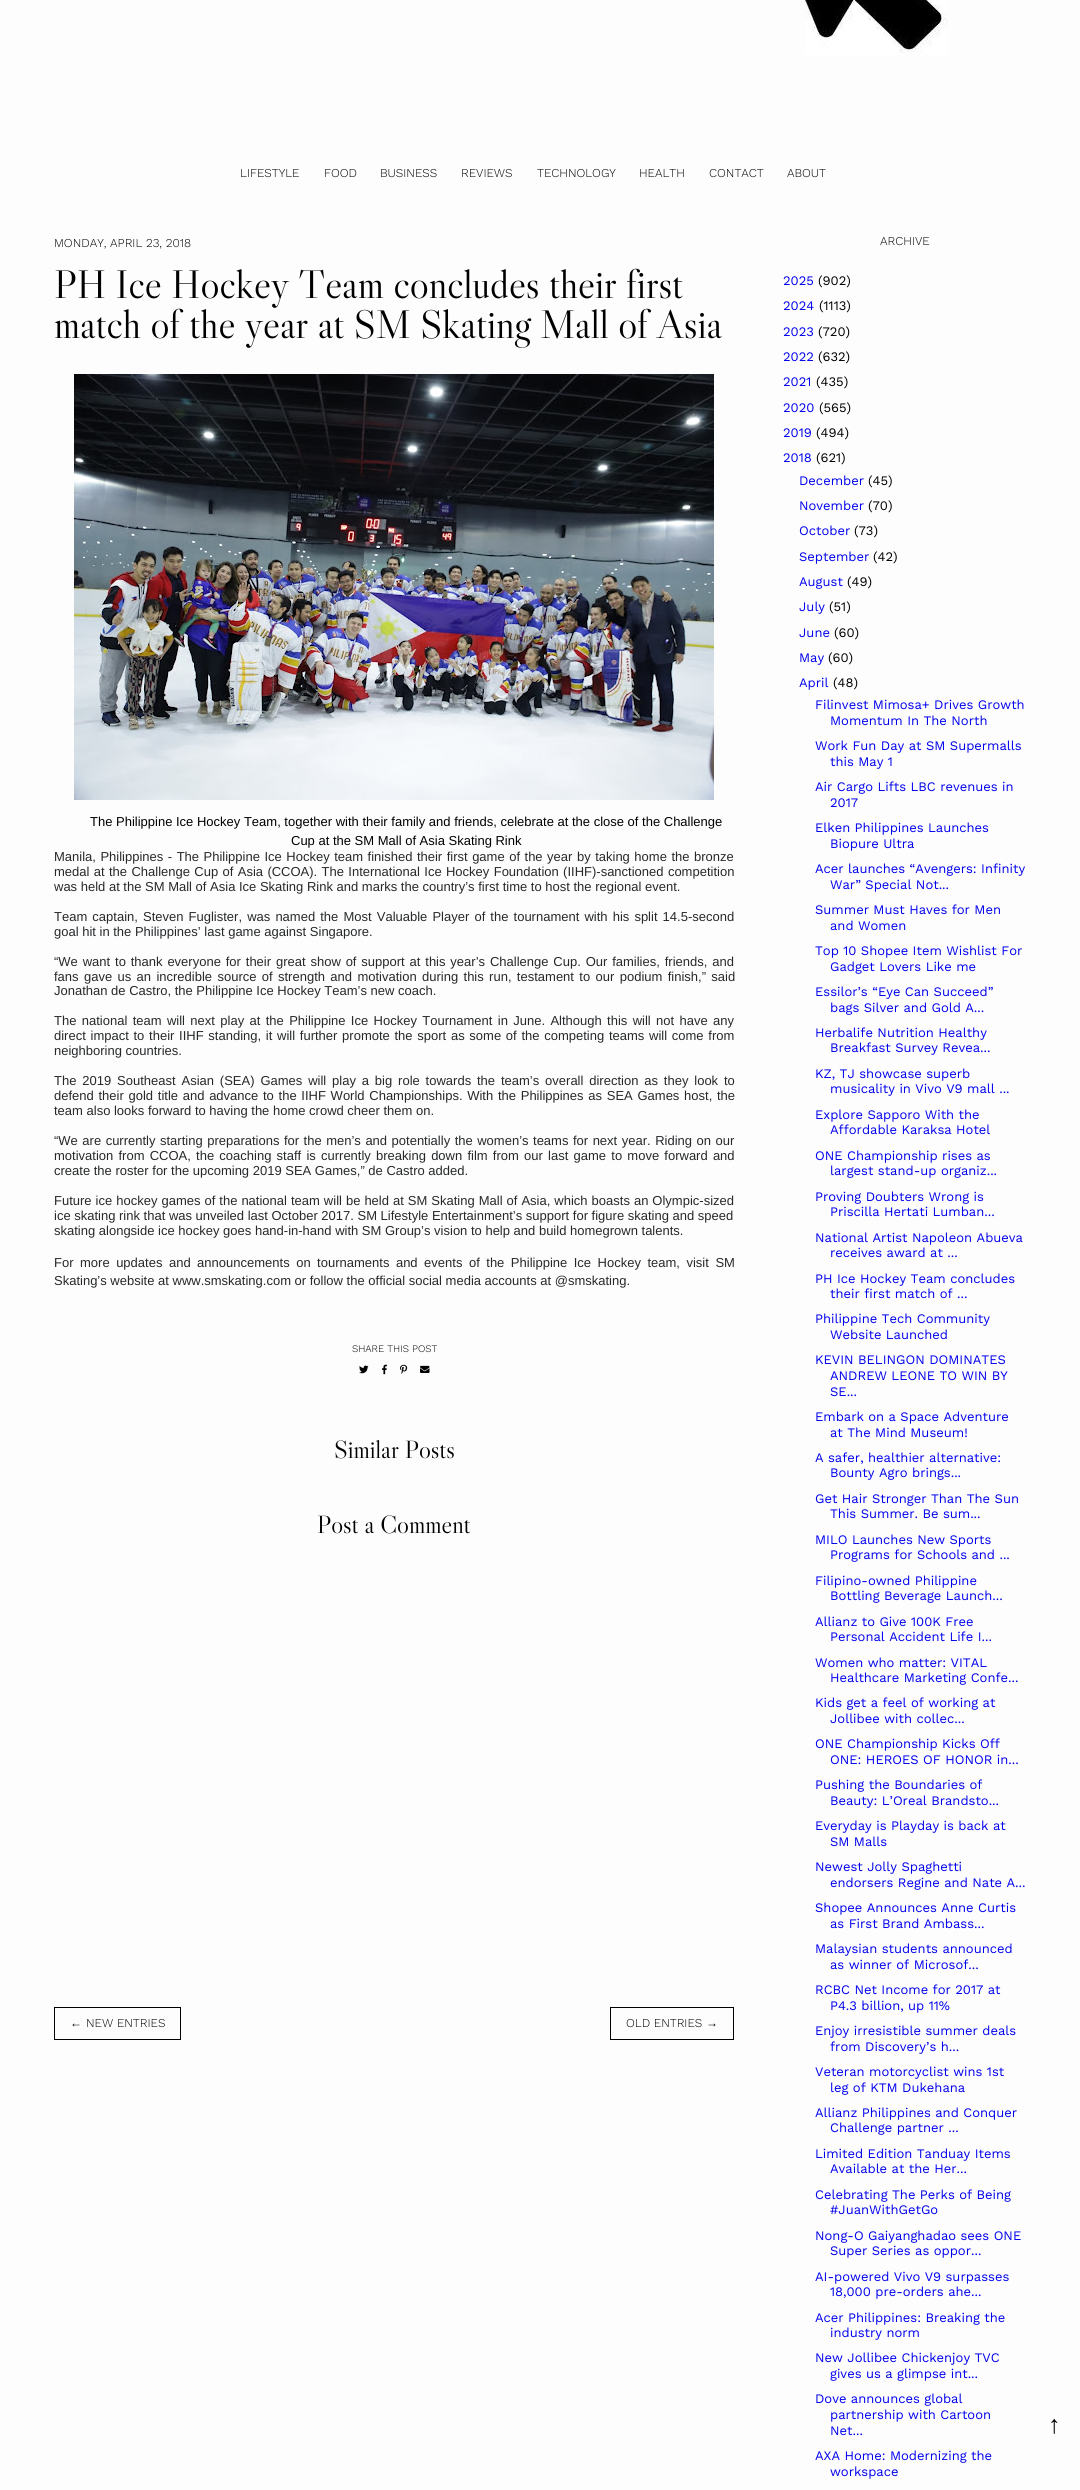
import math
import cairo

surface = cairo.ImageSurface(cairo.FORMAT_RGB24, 1080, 2490)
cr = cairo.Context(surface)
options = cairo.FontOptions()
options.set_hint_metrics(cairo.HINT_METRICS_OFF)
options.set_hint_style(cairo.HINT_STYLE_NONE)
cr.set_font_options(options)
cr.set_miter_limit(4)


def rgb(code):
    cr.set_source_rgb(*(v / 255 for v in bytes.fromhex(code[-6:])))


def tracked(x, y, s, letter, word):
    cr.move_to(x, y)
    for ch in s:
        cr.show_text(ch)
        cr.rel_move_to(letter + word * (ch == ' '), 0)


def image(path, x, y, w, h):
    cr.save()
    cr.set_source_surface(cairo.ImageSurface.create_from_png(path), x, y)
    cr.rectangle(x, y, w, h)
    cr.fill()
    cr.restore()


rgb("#fdfdfd")
cr.paint()
image("img/1.png", 805, 0, 143, 55)
image("img/2.png", 74, 374, 640, 426)
image("img/3.png", 359, 1365, 10, 9)
image("img/4.png", 382, 1364, 5, 11)
image("img/5.png", 400, 1364, 8, 10)
image("img/6.png", 420, 1365, 10, 8)
cr.rectangle(54.5, 2007.5, 126, 32)
rgb("#000000")
cr.set_line_width(1)
cr.stroke()
cr.rectangle(610.5, 2007.5, 123, 32)
cr.stroke()
cr.select_font_face("Work Sans Light")
cr.set_font_size(12)
for x, y, s in [
    (240, 177, "LIFESTYLE"),
    (324, 177, "FOOD"),
    (380, 177, "BUSINESS"),
    (461, 177, "REVIEWS"),
    (537, 177, "TECHNOLOGY"),
    (639, 177, "HEALTH"),
    (709, 177, "CONTACT"),
    (787, 177, "ABOUT"),
    (54, 247, "MONDAY, APRIL 23, 2018"),
]:
    cr.move_to(x, y)
    cr.show_text(s)
cr.select_font_face("Libre Caslon Display")
cr.set_font_size(40)
cr.move_to(54, 298)
cr.show_text("PH Ice Hockey Team concludes their first")
cr.move_to(54, 338)
cr.show_text("match of the year at SM Skating Mall of Asia")
cr.select_font_face("Liberation Sans")
cr.set_font_size(13)
cr.move_to(90, 826)
cr.show_text("The Philippine Ice Hockey Team, together with their family and friends, celebrate at the close of the Challenge")
cr.move_to(291, 845)
cr.show_text("Cup at the SM Mall of Asia Skating Rink")
rgb("#26282a")
tracked(54, 861, "Manila, Philippines - The Philippine Ice Hockey team finished their first game of the year by taking home the bronze", 0, 0.9)
tracked(54, 876, "medal at the Challenge Cup of Asia (CCOA). The International Ice Hockey Foundation (IIHF)-sanctioned competition", 0, 0.75)
cr.move_to(54, 891)
cr.show_text("was held at the SM Mall of Asia Ice Skating Rink and marks the country’s first time to host the regional event.")
tracked(54, 921, "Team captain, Steven Fuglister, was named the Most Valuable Player of the tournament with his split 14.5-second", 0, 1.5)
cr.move_to(54, 936)
cr.show_text("goal hit in the Philippines’ last game against Singapore.")
tracked(54, 966, "“We want to thank everyone for their great show of support at this year’s Challenge Cup. Our families, friends, and", 0, 1.25)
tracked(54, 981, "fans gave us an incredible source of strength and motivation during this run, testament to our podium finish,” said", 0, 1.75)
cr.move_to(54, 995)
cr.show_text("Jonathan de Castro, the Philippine Ice Hockey Team’s new coach.")
tracked(54, 1025, "The national team will next play at the Philippine Ice Hockey Tournament in June. Although this will not have any", 0, 1.75)
tracked(54, 1040, "direct impact to their IIHF standing, it will further promote the sport as some of the competing teams will come from", 0, 1.1)
cr.move_to(54, 1055)
cr.show_text("neighboring countries.")
tracked(54, 1085, "The 2019 Southeast Asian (SEA) Games will play a big role towards the team’s overall direction as they look to", 0, 2.25)
tracked(54, 1100, "defend their gold title and advance to the IIHF World Championships. With the Philippines as SEA Games host, the", 0, 1.1)
cr.move_to(54, 1115)
cr.show_text("team also looks forward to having the home crowd cheer them on.")
tracked(54, 1145, "“We are currently starting preparations for the men’s and potentially the women’s teams for next year. Riding on our", 0, 0.9)
tracked(54, 1160, "motivation from CCOA, the coaching staff is currently breaking down film from our last game to move forward and", 0, 1.6)
cr.move_to(54, 1175)
cr.show_text("create the roster for the upcoming 2019 SEA Games,” de Castro added.")
tracked(54, 1205, "Future ice hockey games of the national team will be held at SM Skating Mall of Asia, which boasts an Olympic-sized", 0, 0.4)
cr.move_to(54, 1220)
cr.show_text("ice skating rink that was unveiled last October 2017. SM Lifestyle Entertainment’s support for figure skating and speed")
cr.move_to(54, 1235)
cr.show_text("skating alongside ice hockey goes hand-in-hand with SM Group’s vision to help and build homegrown talents.")
tracked(54, 1267, "For more updates and announcements on tournaments and events of the Philippine Ice Hockey team, visit SM", 0, 2.9)
cr.move_to(54, 1285)
cr.show_text("Skating’s website at www.smskating.com or follow the official social media accounts at @smskating.")
cr.select_font_face("Work Sans Light")
cr.set_font_size(10)
rgb("#000000")
cr.move_to(352, 1352)
cr.show_text("SHARE THIS POST")
cr.select_font_face("Libre Caslon Display")
cr.set_font_size(25)
cr.move_to(334, 1458)
cr.show_text("Similar Posts")
cr.move_to(317, 1533)
cr.show_text("Post a Comment")
cr.select_font_face("Liberation Sans")
cr.set_font_size(12)
cr.move_to(70, 2027)
cr.show_text("←")
cr.select_font_face("Work Sans Light")
cr.move_to(86, 2027)
cr.show_text("NEW ENTRIES")
cr.move_to(626, 2027)
cr.show_text("OLD ENTRIES")
cr.select_font_face("Liberation Sans")
cr.move_to(706, 2027)
cr.show_text("→")
cr.select_font_face("Work Sans Light")
cr.move_to(880, 245)
cr.show_text("ARCHIVE")
cr.select_font_face("Work Sans")
cr.set_font_size(13)
rgb("#0000ee")
cr.move_to(783, 285)
cr.show_text("2025")
rgb("#000000")
cr.move_to(818, 285)
cr.show_text("(902)")
rgb("#0000ee")
cr.move_to(783, 310)
cr.show_text("2024")
rgb("#000000")
cr.move_to(819, 310)
cr.show_text("(1113)")
rgb("#0000ee")
cr.move_to(783, 336)
cr.show_text("2023")
rgb("#000000")
cr.move_to(818, 336)
cr.show_text("(720)")
rgb("#0000ee")
cr.move_to(783, 361)
cr.show_text("2022")
rgb("#000000")
cr.move_to(818, 361)
cr.show_text("(632)")
rgb("#0000ee")
cr.move_to(783, 386)
cr.show_text("2021")
rgb("#000000")
cr.move_to(816, 386)
cr.show_text("(435)")
rgb("#0000ee")
cr.move_to(783, 412)
cr.show_text("2020")
rgb("#000000")
cr.move_to(819, 412)
cr.show_text("(565)")
rgb("#0000ee")
cr.move_to(783, 437)
cr.show_text("2019")
rgb("#000000")
cr.move_to(816, 437)
cr.show_text("(494)")
rgb("#0000ee")
cr.move_to(783, 462)
cr.show_text("2018")
rgb("#000000")
cr.move_to(816, 462)
cr.show_text("(621)")
rgb("#0000ee")
cr.move_to(799, 485)
cr.show_text("December")
rgb("#000000")
cr.move_to(868, 485)
cr.show_text("(45)")
rgb("#0000ee")
cr.move_to(799, 510)
cr.show_text("November")
rgb("#000000")
cr.move_to(868, 510)
cr.show_text("(70)")
rgb("#0000ee")
cr.move_to(799, 535)
cr.show_text("October")
rgb("#000000")
cr.move_to(854, 535)
cr.show_text("(73)")
rgb("#0000ee")
cr.move_to(799, 561)
cr.show_text("September")
rgb("#000000")
cr.move_to(873, 561)
cr.show_text("(42)")
rgb("#0000ee")
cr.move_to(799, 586)
cr.show_text("August")
rgb("#000000")
cr.move_to(847, 586)
cr.show_text("(49)")
rgb("#0000ee")
cr.move_to(799, 611)
cr.show_text("July")
rgb("#000000")
cr.move_to(829, 611)
cr.show_text("(51)")
rgb("#0000ee")
cr.move_to(799, 637)
cr.show_text("June")
rgb("#000000")
cr.move_to(834, 637)
cr.show_text("(60)")
rgb("#0000ee")
cr.move_to(799, 662)
cr.show_text("May")
rgb("#000000")
cr.move_to(828, 662)
cr.show_text("(60)")
rgb("#0000ee")
cr.move_to(799, 687)
cr.show_text("April")
rgb("#000000")
cr.move_to(833, 687)
cr.show_text("(48)")
rgb("#0000ee")
for x, y, s in [
    (815, 709, "Filinvest Mimosa+ Drives Growth"),
    (830, 725, "Momentum In The North"),
    (815, 750, "Work Fun Day at SM Supermalls"),
    (830, 766, "this May 1"),
    (815, 791, "Air Cargo Lifts LBC revenues in"),
    (830, 807, "2017"),
    (815, 832, "Elken Philippines Launches"),
    (830, 848, "Biopure Ultra"),
    (815, 873, "Acer launches “Avengers: Infinity"),
    (830, 889, "War” Special Not..."),
    (815, 914, "Summer Must Haves for Men"),
    (830, 930, "and Women"),
    (815, 955, "Top 10 Shopee Item Wishlist For"),
    (830, 971, "Gadget Lovers Like me"),
    (815, 996, "Essilor’s “Eye Can Succeed”"),
    (830, 1012, "bags Silver and Gold A..."),
    (815, 1037, "Herbalife Nutrition Healthy"),
    (830, 1052, "Breakfast Survey Revea..."),
    (815, 1078, "KZ, TJ showcase superb"),
    (830, 1093, "musicality in Vivo V9 mall ..."),
    (815, 1119, "Explore Sapporo With the"),
    (830, 1134, "Affordable Karaksa Hotel"),
    (815, 1160, "ONE Championship rises as"),
    (830, 1175, "largest stand-up organiz..."),
    (815, 1201, "Proving Doubters Wrong is"),
    (830, 1216, "Priscilla Hertati Lumban..."),
    (815, 1242, "National Artist Napoleon Abueva"),
    (830, 1257, "receives award at ..."),
    (815, 1283, "PH Ice Hockey Team concludes"),
    (830, 1298, "their first match of ..."),
    (815, 1323, "Philippine Tech Community"),
    (830, 1339, "Website Launched"),
    (815, 1364, "KEVIN BELINGON DOMINATES"),
    (830, 1380, "ANDREW LEONE TO WIN BY"),
    (830, 1396, "SE..."),
    (815, 1421, "Embark on a Space Adventure"),
    (830, 1437, "at The Mind Museum!"),
    (815, 1462, "A safer, healthier alternative:"),
    (830, 1477, "Bounty Agro brings..."),
    (815, 1503, "Get Hair Stronger Than The Sun"),
    (830, 1518, "This Summer. Be sum..."),
    (815, 1544, "MILO Launches New Sports"),
    (830, 1559, "Programs for Schools and ..."),
    (815, 1585, "Filipino-owned Philippine"),
    (830, 1600, "Bottling Beverage Launch..."),
    (815, 1626, "Allianz to Give 100K Free"),
    (830, 1641, "Personal Accident Life I..."),
    (815, 1667, "Women who matter: VITAL"),
    (830, 1682, "Healthcare Marketing Confe..."),
    (815, 1707, "Kids get a feel of working at"),
    (830, 1723, "Jollibee with collec..."),
    (815, 1748, "ONE Championship Kicks Off"),
    (830, 1764, "ONE: HEROES OF HONOR in..."),
    (815, 1789, "Pushing the Boundaries of"),
    (830, 1805, "Beauty: L’Oreal Brandsto..."),
    (815, 1830, "Everyday is Playday is back at"),
    (830, 1846, "SM Malls"),
    (815, 1871, "Newest Jolly Spaghetti"),
    (830, 1887, "endorsers Regine and Nate A..."),
    (815, 1912, "Shopee Announces Anne Curtis"),
    (830, 1928, "as First Brand Ambass..."),
    (815, 1953, "Malaysian students announced"),
    (830, 1969, "as winner of Microsof..."),
    (815, 1994, "RCBC Net Income for 2017 at"),
    (830, 2010, "P4.3 billion, up 11%"),
    (815, 2035, "Enjoy irresistible summer deals"),
    (830, 2051, "from Discovery’s h..."),
    (815, 2076, "Veteran motorcyclist wins 1st"),
    (830, 2092, "leg of KTM Dukehana"),
    (815, 2117, "Allianz Philippines and Conquer"),
    (830, 2132, "Challenge partner ..."),
    (815, 2158, "Limited Edition Tanduay Items"),
    (830, 2173, "Available at the Her..."),
    (815, 2199, "Celebrating The Perks of Being"),
    (830, 2214, "#JuanWithGetGo"),
    (815, 2240, "Nong-O Gaiyanghadao sees ONE"),
    (830, 2255, "Super Series as oppor..."),
    (815, 2281, "AI-powered Vivo V9 surpasses"),
    (830, 2296, "18,000 pre-orders ahe..."),
    (815, 2322, "Acer Philippines: Breaking the"),
    (830, 2337, "industry norm"),
    (815, 2362, "New Jollibee Chickenjoy TVC"),
    (830, 2378, "gives us a glimpse int..."),
    (815, 2403, "Dove announces global"),
    (830, 2419, "partnership with Cartoon"),
    (830, 2435, "Net..."),
    (815, 2460, "AXA Home: Modernizing the"),
    (830, 2476, "workspace"),
]:
    cr.move_to(x, y)
    cr.show_text(s)
cr.select_font_face("Liberation Serif")
cr.set_font_size(25)
rgb("#000000")
cr.move_to(1048, 2433)
cr.show_text("↑")
surface.write_to_png("page.png")
